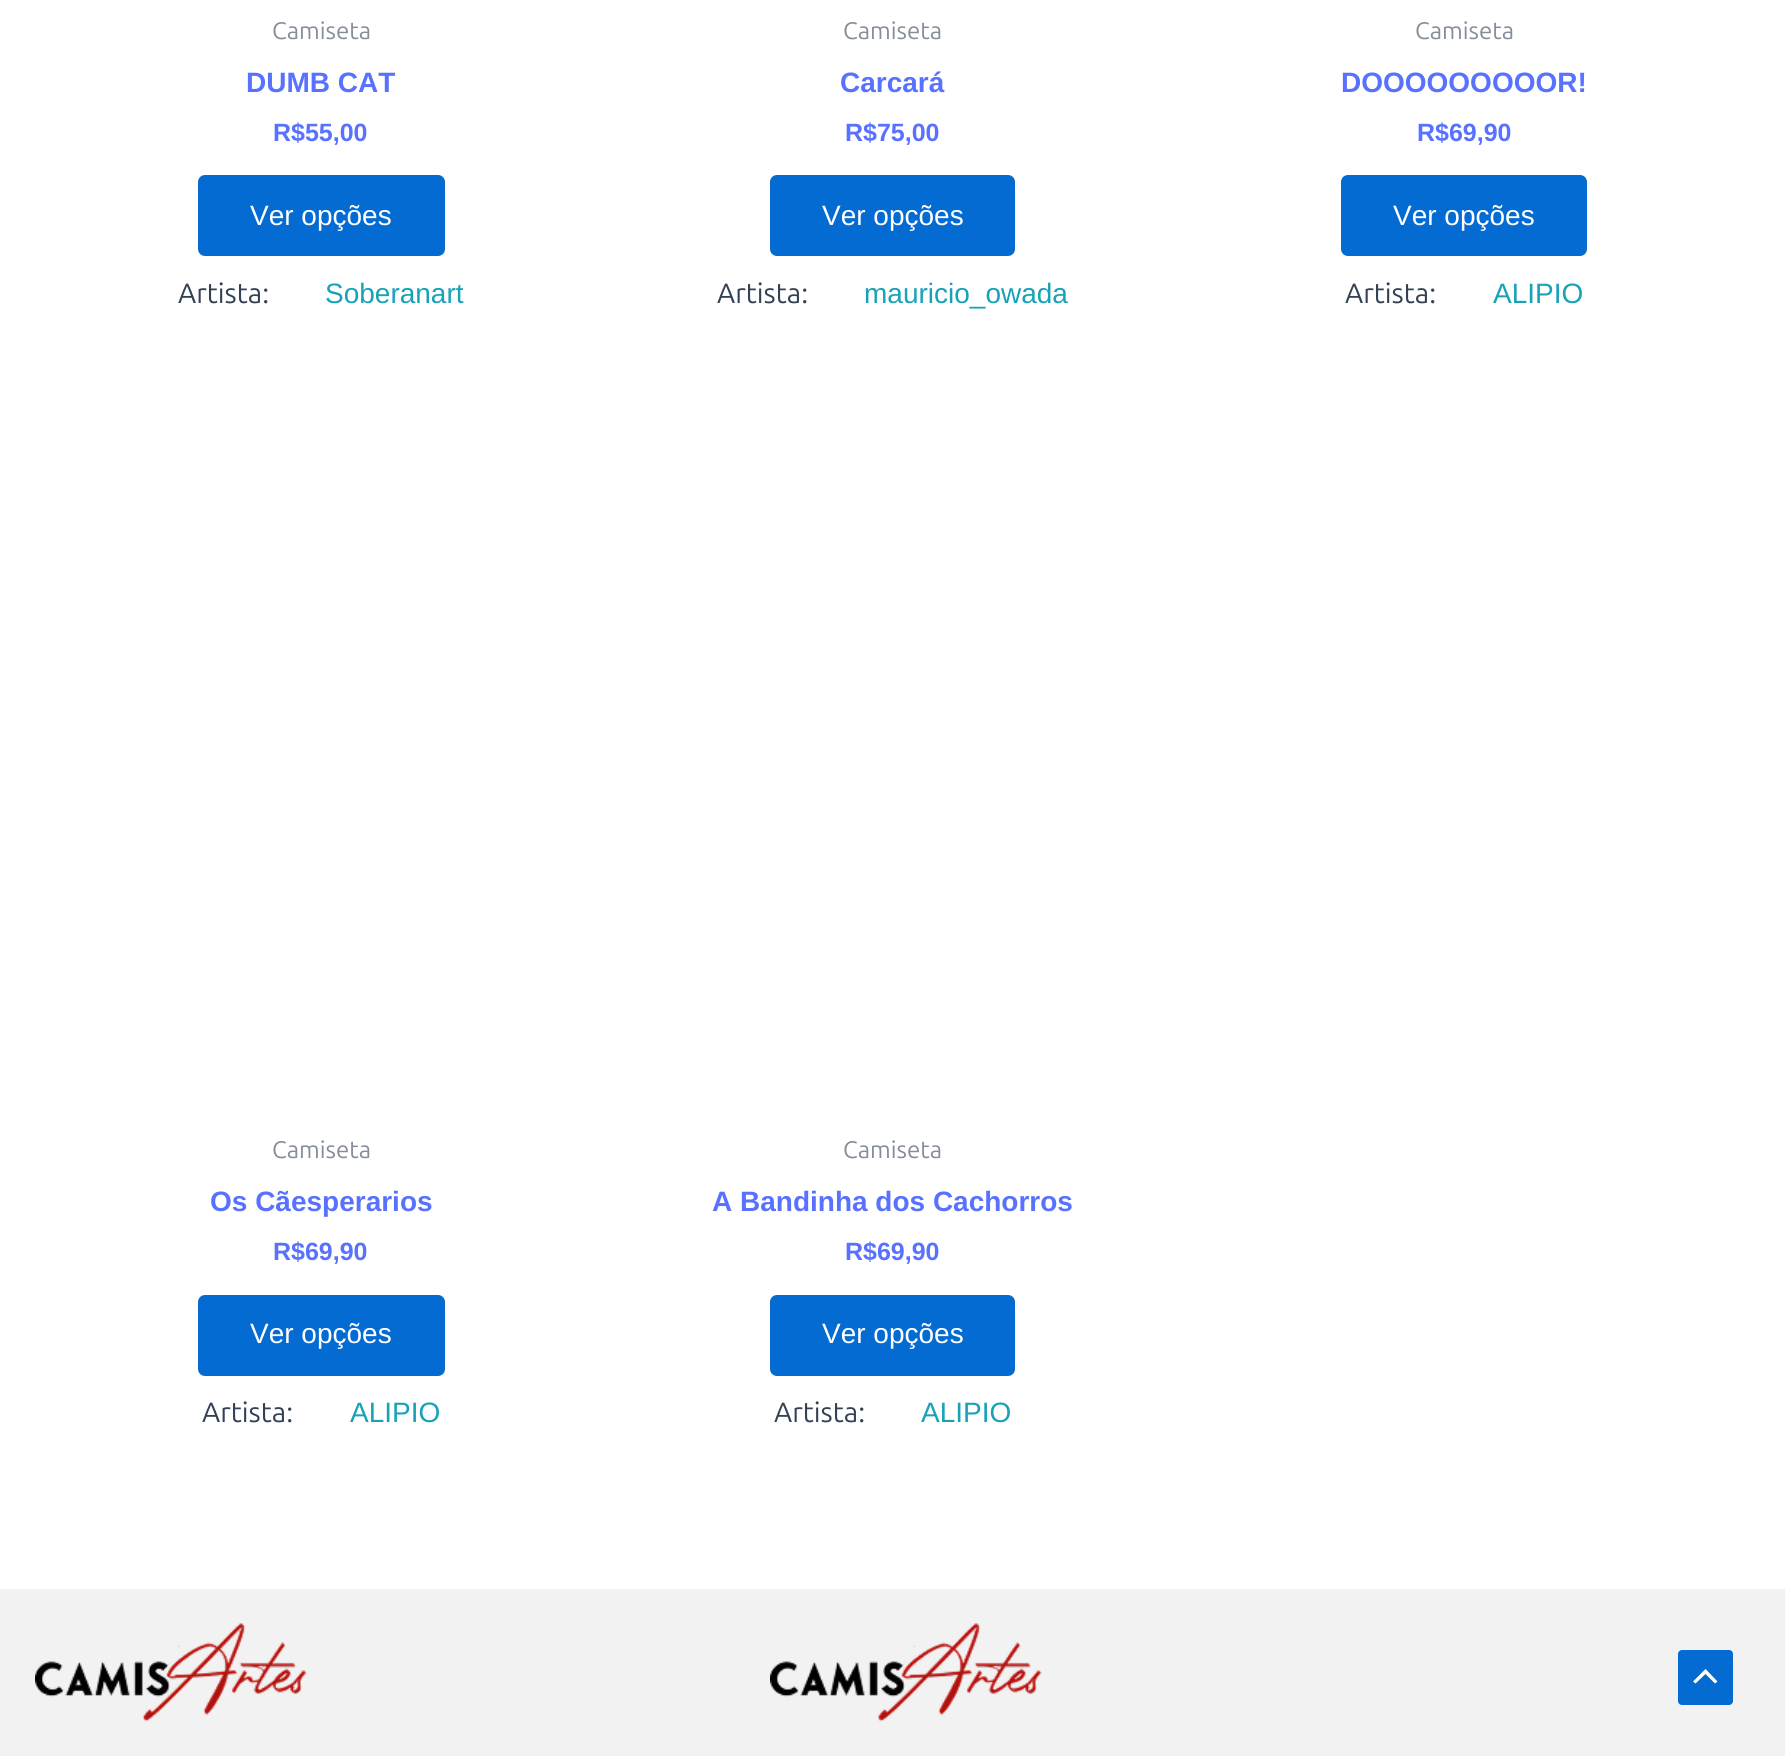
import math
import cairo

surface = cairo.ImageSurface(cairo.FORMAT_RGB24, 1785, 1756)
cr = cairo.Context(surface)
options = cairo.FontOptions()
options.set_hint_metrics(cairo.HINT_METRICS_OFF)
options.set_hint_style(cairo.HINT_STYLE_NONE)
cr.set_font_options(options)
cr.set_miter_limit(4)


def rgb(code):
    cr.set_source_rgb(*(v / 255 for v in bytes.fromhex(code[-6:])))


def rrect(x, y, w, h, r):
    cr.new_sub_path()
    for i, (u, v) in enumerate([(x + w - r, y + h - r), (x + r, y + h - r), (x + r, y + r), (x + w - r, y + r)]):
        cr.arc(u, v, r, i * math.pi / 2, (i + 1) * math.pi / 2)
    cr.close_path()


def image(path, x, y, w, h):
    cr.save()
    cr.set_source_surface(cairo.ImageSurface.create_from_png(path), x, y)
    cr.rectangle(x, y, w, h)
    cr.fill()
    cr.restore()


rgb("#ffffff")
cr.paint()
rgb("#046bd2")
rrect(198, 175, 247, 81, 7)
cr.fill()
rrect(770, 175, 245, 81, 7)
cr.fill()
rrect(1341, 175, 246, 81, 7)
cr.fill()
rrect(198, 1295, 247, 81, 7)
cr.fill()
rrect(770, 1295, 245, 81, 7)
cr.fill()
rgb("#f2f2f2")
cr.rectangle(0, 1589, 1785, 167)
cr.fill()
image("img/1.png", 35, 1623, 272, 99)
image("img/1.png", 770, 1623, 272, 99)
rgb("#046bd2")
rrect(1678, 1650, 55, 55, 4)
cr.fill()
rgb("#ffffff")
cr.new_path()
cr.move_to(1717.5, 1681.5)
cr.line_to(1705.5, 1669)
cr.line_to(1693, 1681.5)
cr.line_to(1695.5, 1683.5)
cr.line_to(1705.5, 1674)
cr.line_to(1715, 1683.5)
cr.close_path()
cr.fill()
cr.select_font_face("Ubuntu")
cr.set_font_size(24)
rgb("#858d99")
cr.move_to(272, 39)
cr.show_text("Camiseta")
cr.select_font_face("Liberation Sans", cairo.FONT_SLANT_NORMAL, cairo.FONT_WEIGHT_BOLD)
cr.set_font_size(28)
rgb("#5871ff")
cr.move_to(246, 92)
cr.show_text("DUMB CAT")
cr.set_font_size(25)
cr.move_to(273, 141)
cr.show_text("R$55,00")
cr.select_font_face("Liberation Sans")
cr.set_font_size(28)
rgb("#ffffff")
cr.move_to(250, 225)
cr.show_text("Ver opções")
cr.select_font_face("Ubuntu")
rgb("#334155")
cr.move_to(178, 303)
cr.show_text("Artista:")
cr.select_font_face("Liberation Sans")
rgb("#17a2b8")
cr.move_to(325, 303)
cr.show_text("Soberanart")
cr.select_font_face("Ubuntu")
cr.set_font_size(24)
rgb("#858d99")
cr.move_to(843, 39)
cr.show_text("Camiseta")
cr.select_font_face("Liberation Sans", cairo.FONT_SLANT_NORMAL, cairo.FONT_WEIGHT_BOLD)
cr.set_font_size(28)
rgb("#5871ff")
cr.move_to(840, 92)
cr.show_text("Carcará")
cr.set_font_size(25)
cr.move_to(845, 141)
cr.show_text("R$75,00")
cr.select_font_face("Liberation Sans")
cr.set_font_size(28)
rgb("#ffffff")
cr.move_to(822, 225)
cr.show_text("Ver opções")
cr.select_font_face("Ubuntu")
rgb("#334155")
cr.move_to(717, 303)
cr.show_text("Artista:")
cr.select_font_face("Liberation Sans")
rgb("#17a2b8")
cr.move_to(864, 303)
cr.show_text("mauricio_owada")
cr.select_font_face("Ubuntu")
cr.set_font_size(24)
rgb("#858d99")
cr.move_to(1415, 39)
cr.show_text("Camiseta")
cr.select_font_face("Liberation Sans", cairo.FONT_SLANT_NORMAL, cairo.FONT_WEIGHT_BOLD)
cr.set_font_size(28)
rgb("#5871ff")
cr.move_to(1341, 92)
cr.show_text("DOOOOOOOOOR!")
cr.set_font_size(25)
cr.move_to(1417, 141)
cr.show_text("R$69,90")
cr.select_font_face("Liberation Sans")
cr.set_font_size(28)
rgb("#ffffff")
cr.move_to(1393, 225)
cr.show_text("Ver opções")
cr.select_font_face("Ubuntu")
rgb("#334155")
cr.move_to(1345, 303)
cr.show_text("Artista:")
cr.select_font_face("Liberation Sans")
rgb("#17a2b8")
cr.move_to(1493, 303)
cr.show_text("ALIPIO")
cr.select_font_face("Ubuntu")
cr.set_font_size(24)
rgb("#858d99")
cr.move_to(272, 1158)
cr.show_text("Camiseta")
cr.select_font_face("Liberation Sans", cairo.FONT_SLANT_NORMAL, cairo.FONT_WEIGHT_BOLD)
cr.set_font_size(28)
rgb("#5871ff")
cr.move_to(210, 1211)
cr.show_text("Os Cãesperarios")
cr.set_font_size(25)
cr.move_to(273, 1260)
cr.show_text("R$69,90")
cr.select_font_face("Liberation Sans")
cr.set_font_size(28)
rgb("#ffffff")
cr.move_to(250, 1343)
cr.show_text("Ver opções")
cr.select_font_face("Ubuntu")
rgb("#334155")
cr.move_to(202, 1422)
cr.show_text("Artista:")
cr.select_font_face("Liberation Sans")
rgb("#17a2b8")
cr.move_to(350, 1422)
cr.show_text("ALIPIO")
cr.select_font_face("Ubuntu")
cr.set_font_size(24)
rgb("#858d99")
cr.move_to(843, 1158)
cr.show_text("Camiseta")
cr.select_font_face("Liberation Sans", cairo.FONT_SLANT_NORMAL, cairo.FONT_WEIGHT_BOLD)
cr.set_font_size(28)
rgb("#5871ff")
cr.move_to(712, 1211)
cr.show_text("A Bandinha dos Cachorros")
cr.set_font_size(25)
cr.move_to(845, 1260)
cr.show_text("R$69,90")
cr.select_font_face("Liberation Sans")
cr.set_font_size(28)
rgb("#ffffff")
cr.move_to(822, 1343)
cr.show_text("Ver opções")
cr.select_font_face("Ubuntu")
rgb("#334155")
cr.move_to(774, 1422)
cr.show_text("Artista:")
cr.select_font_face("Liberation Sans")
rgb("#17a2b8")
cr.move_to(921, 1422)
cr.show_text("ALIPIO")
surface.write_to_png("page.png")
